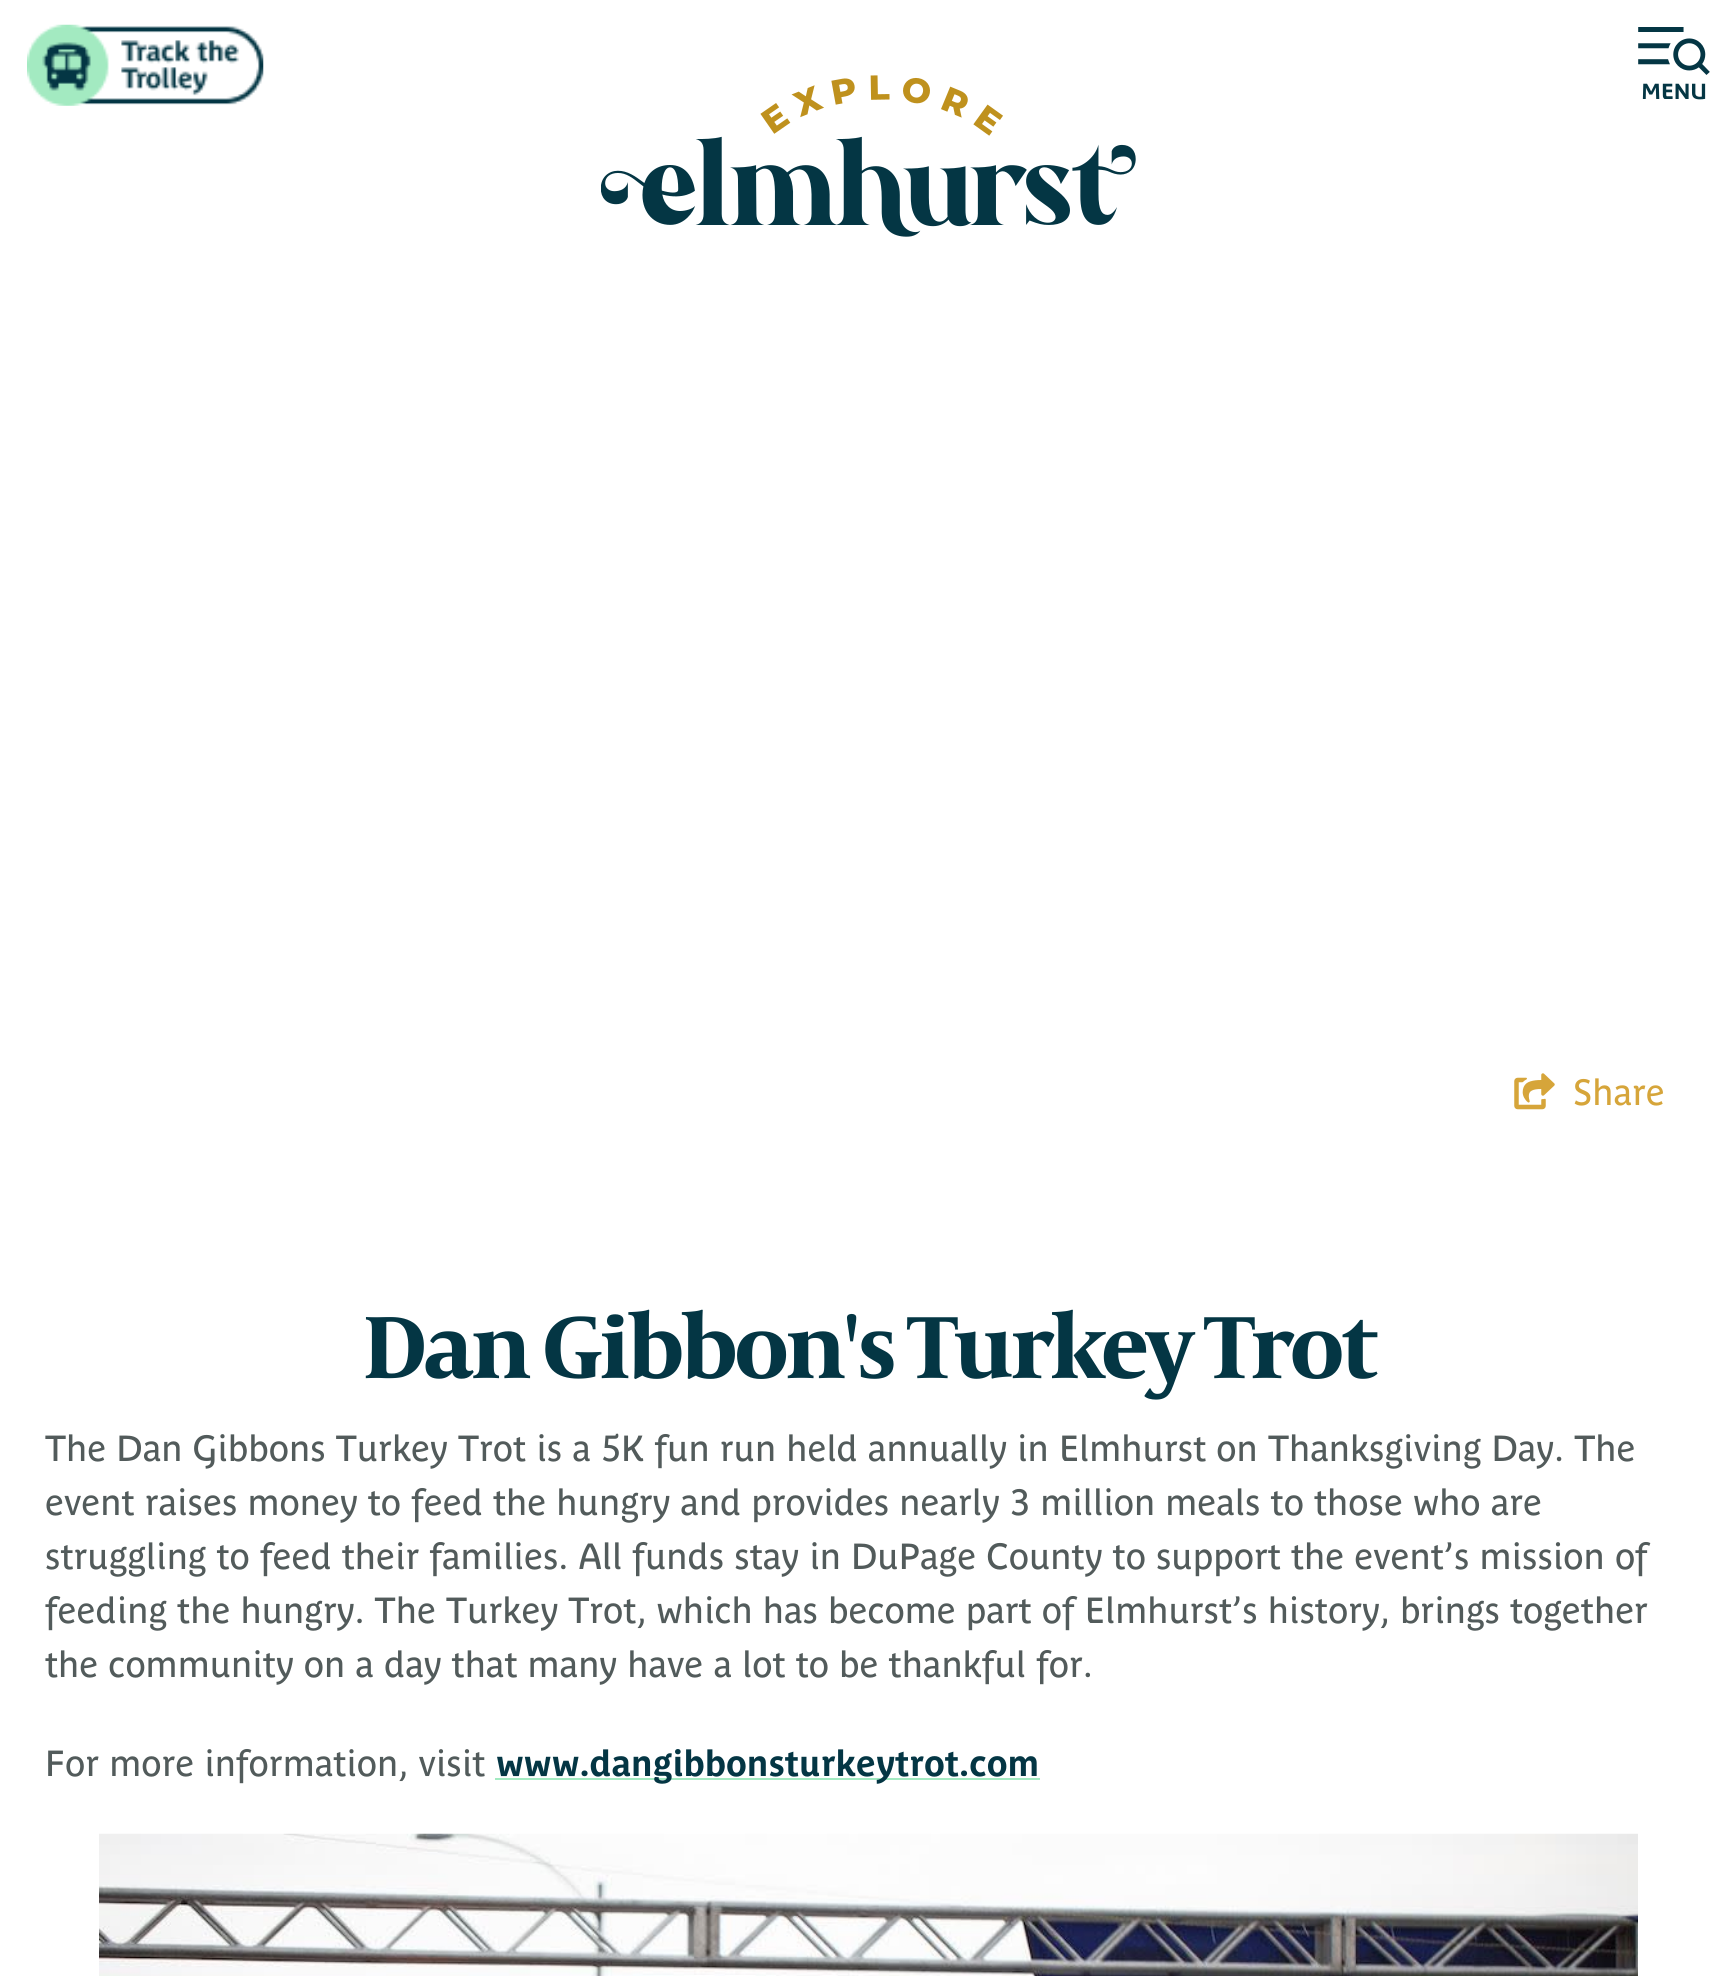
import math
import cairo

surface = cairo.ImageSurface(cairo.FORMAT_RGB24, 1736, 1976)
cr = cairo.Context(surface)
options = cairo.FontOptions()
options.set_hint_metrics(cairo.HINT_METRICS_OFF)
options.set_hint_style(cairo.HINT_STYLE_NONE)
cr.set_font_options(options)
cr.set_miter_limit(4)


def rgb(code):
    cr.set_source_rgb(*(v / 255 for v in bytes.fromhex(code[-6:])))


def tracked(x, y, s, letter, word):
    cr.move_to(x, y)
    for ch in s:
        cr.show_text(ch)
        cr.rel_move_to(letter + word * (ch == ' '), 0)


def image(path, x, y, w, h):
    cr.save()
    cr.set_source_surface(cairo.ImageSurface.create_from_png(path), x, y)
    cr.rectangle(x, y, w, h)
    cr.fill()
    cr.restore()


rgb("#ffffff")
cr.paint()
image("img/1.png", 27, 24, 237, 82)
image("img/2.png", 1638, 27, 72, 73)
image("img/3.png", 601, 75, 535, 162)
image("img/4.png", 1514, 1073, 41, 37)
rgb("#a3eac1")
cr.rectangle(495, 1778, 545, 2)
cr.fill()
image("img/5.png", 99, 1833, 1539, 143)
cr.select_font_face("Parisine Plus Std")
cr.set_font_size(36)
rgb("#d6a53a")
cr.move_to(1573, 1105)
cr.show_text("Share")
cr.select_font_face("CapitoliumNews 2", cairo.FONT_SLANT_NORMAL, cairo.FONT_WEIGHT_BOLD)
cr.set_font_size(90)
rgb("#043644")
tracked(363, 1378, "Dan Gibbon's Turkey Trot", -3.6, 0)
cr.select_font_face("Parisine Plus Std")
cr.set_font_size(36)
rgb("#525b5b")
for x, y, s in [
    (45, 1461, "The Dan Gibbons Turkey Trot is a 5K fun run held annually in Elmhurst on Thanksgiving Day. The"),
    (45, 1515, "event raises money to feed the hungry and provides nearly 3 million meals to those who are"),
    (45, 1569, "struggling to feed their families. All funds stay in DuPage County to support the event’s mission of"),
    (45, 1623, "feeding the hungry. The Turkey Trot, which has become part of Elmhurst’s history, brings together"),
    (45, 1677, "the community on a day that many have a lot to be thankful for."),
    (45, 1776, "For more information, visit"),
]:
    cr.move_to(x, y)
    cr.show_text(s)
cr.select_font_face("Parisine Plus Std", cairo.FONT_SLANT_NORMAL, cairo.FONT_WEIGHT_BOLD)
rgb("#043644")
cr.move_to(496, 1776)
cr.show_text("www.dangibbonsturkeytrot.com")
surface.write_to_png("page.png")
